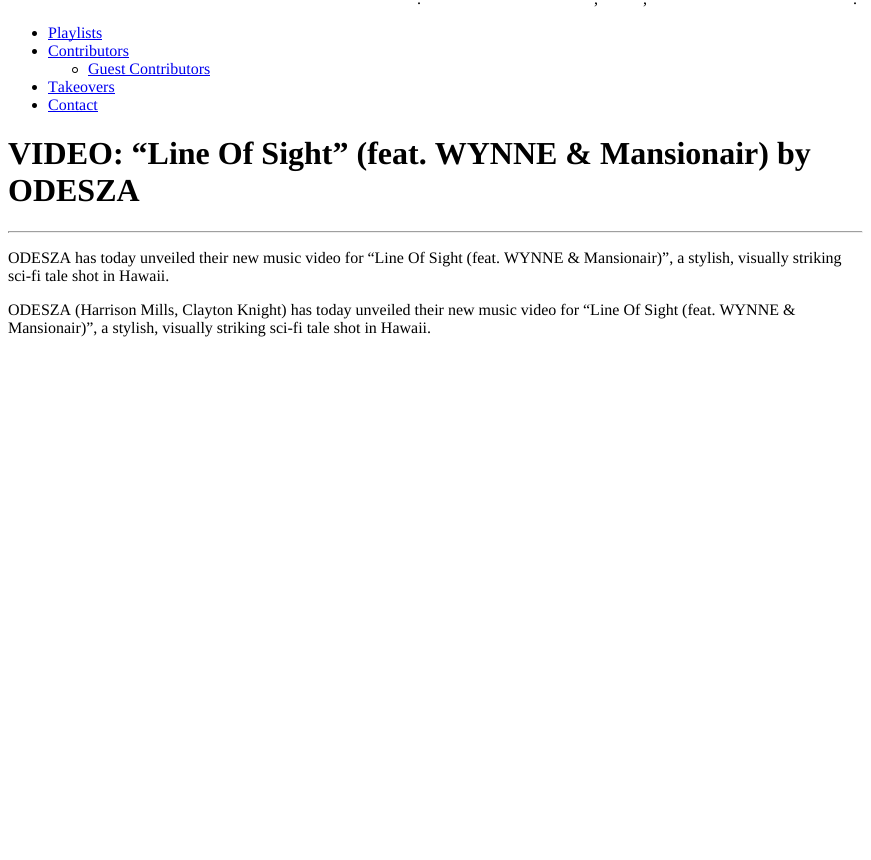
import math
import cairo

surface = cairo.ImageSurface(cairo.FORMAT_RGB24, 871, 860)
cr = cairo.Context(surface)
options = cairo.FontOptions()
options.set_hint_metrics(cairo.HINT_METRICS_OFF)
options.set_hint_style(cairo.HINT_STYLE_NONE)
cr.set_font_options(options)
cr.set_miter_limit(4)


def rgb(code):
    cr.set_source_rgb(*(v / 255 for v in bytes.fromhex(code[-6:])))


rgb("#ffffff")
cr.paint()
rgb("#000000")
cr.arc(34.5, 33.5, 2.5, 0, 2 * math.pi)
cr.fill()
rgb("#0000ee")
cr.rectangle(48, 39, 54, 1)
cr.fill()
rgb("#000000")
cr.arc(34.5, 51.5, 2.5, 0, 2 * math.pi)
cr.fill()
rgb("#0000ee")
cr.rectangle(48, 57, 81, 1)
cr.fill()
cr.arc(75, 70, 2.5, 0, 2 * math.pi)
rgb("#000000")
cr.set_line_width(1)
cr.stroke()
rgb("#0000ee")
cr.rectangle(88, 75, 122, 1)
cr.fill()
rgb("#000000")
cr.arc(34.5, 87.5, 2.5, 0, 2 * math.pi)
cr.fill()
rgb("#0000ee")
cr.rectangle(48, 93, 67, 1)
cr.fill()
rgb("#000000")
cr.arc(34.5, 105.5, 2.5, 0, 2 * math.pi)
cr.fill()
for x, y, w, h, color in [
    (48, 111, 50, 1, "#0000ee"),
    (8, 231, 855, 1, "#9f9f9f"),
    (862, 231, 1, 2, "#eeeeee"),
    (8, 232, 855, 1, "#eeeeee"),
    (8, 231, 1, 2, "#9f9f9f"),
]:
    rgb(color)
    cr.rectangle(x, y, w, h)
    cr.fill()
cr.select_font_face("Liberation Serif")
cr.set_font_size(16)
rgb("#000000")
for x, y, s in [
    (417, 4, "."),
    (594, 4, ","),
    (643, 4, ","),
    (853, 4, "."),
]:
    cr.move_to(x, y)
    cr.show_text(s)
rgb("#0000ee")
for x, y, s in [
    (48, 38, "Playlists"),
    (48, 56, "Contributors"),
    (88, 74, "Guest Contributors"),
    (48, 92, "Takeovers"),
    (48, 110, "Contact"),
]:
    cr.move_to(x, y)
    cr.show_text(s)
cr.select_font_face("Liberation Serif", cairo.FONT_SLANT_NORMAL, cairo.FONT_WEIGHT_BOLD)
cr.set_font_size(32)
rgb("#000000")
cr.move_to(8, 164)
cr.show_text("VIDEO: “Line Of Sight” (feat. WYNNE & Mansionair) by")
cr.move_to(8, 201)
cr.show_text("ODESZA")
cr.select_font_face("Liberation Serif")
cr.set_font_size(16)
for x, y, s in [
    (8, 263, "ODESZA has today unveiled their new music video for “Line Of Sight (feat. WYNNE & Mansionair)”, a stylish, visually striking"),
    (8, 281, "sci-fi tale shot in Hawaii."),
    (8, 315, "ODESZA (Harrison Mills, Clayton Knight) has today unveiled their new music video for “Line Of Sight (feat. WYNNE &"),
    (8, 333, "Mansionair)”, a stylish, visually striking sci-fi tale shot in Hawaii."),
]:
    cr.move_to(x, y)
    cr.show_text(s)
surface.write_to_png("page.png")
